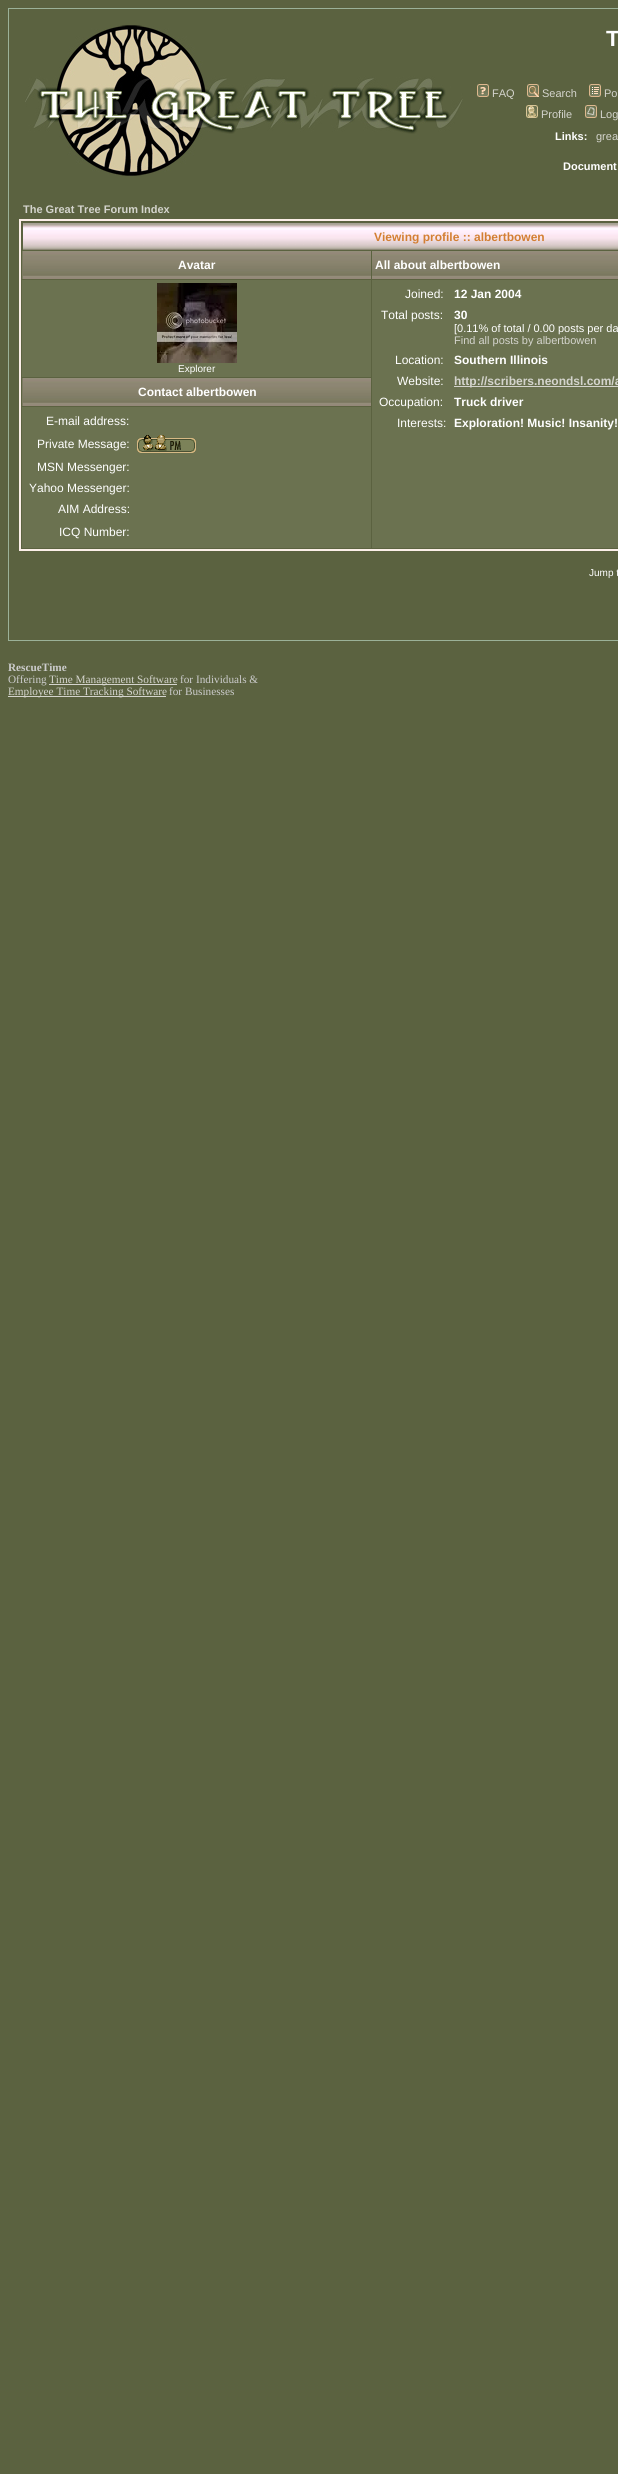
import math
import cairo

surface = cairo.ImageSurface(cairo.FORMAT_RGB24, 618, 2474)
cr = cairo.Context(surface)
options = cairo.FontOptions()
options.set_hint_metrics(cairo.HINT_METRICS_OFF)
options.set_hint_style(cairo.HINT_STYLE_NONE)
cr.set_font_options(options)
cr.set_miter_limit(4)


def rgb(code):
    cr.set_source_rgb(*(v / 255 for v in bytes.fromhex(code[-6:])))


def image(path, x, y, w, h):
    cr.save()
    cr.set_source_surface(cairo.ImageSurface.create_from_png(path), x, y)
    cr.rectangle(x, y, w, h)
    cr.fill()
    cr.restore()


rgb("#5b6240")
cr.paint()
cr.rectangle(8.5, 8.5, 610, 632)
rgb("#9bb198")
cr.set_line_width(1)
cr.stroke()
image("img/1.png", 25, 25, 438, 151)
image("img/2.png", 477, 84, 12, 13)
image("img/3.png", 527, 84, 12, 13)
image("img/4.png", 589, 84, 12, 13)
image("img/5.png", 526, 105, 12, 13)
image("img/6.png", 585, 105, 12, 13)
cr.rectangle(20, 220, 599, 330)
rgb("#fcefe9")
cr.set_line_width(2)
cr.stroke()
image("img/7.png", 23, 223, 595, 27)
image("img/8.png", 23, 251, 348, 28)
rgb("#7c7a61")
cr.rectangle(22, 251, 1, 28)
cr.fill()
image("img/9.png", 372, 251, 246, 28)
rgb("#6b7250")
cr.rectangle(22, 280, 349, 97)
cr.fill()
image("img/10.png", 157, 283, 80, 80)
cr.rectangle(372, 280, 246, 268)
cr.fill()
rgb("#d4d4cd")
cr.rectangle(454, 386, 164, 1)
cr.fill()
image("img/8.png", 23, 378, 348, 28)
rgb("#7c7a61")
cr.rectangle(22, 378, 1, 28)
cr.fill()
rgb("#6b7250")
cr.rectangle(22, 407, 349, 141)
cr.fill()
image("img/11.png", 137, 435, 59, 18)
rgb("#d4d4cd")
cr.rectangle(49, 684, 128, 1)
cr.fill()
cr.rectangle(8, 696, 158, 1)
cr.fill()
cr.select_font_face("Liberation Sans", cairo.FONT_SLANT_NORMAL, cairo.FONT_WEIGHT_BOLD)
cr.set_font_size(22)
rgb("#ffffff")
cr.move_to(606, 46)
cr.show_text("T")
cr.select_font_face("Liberation Sans")
cr.set_font_size(11)
rgb("#d4d4cd")
for x, y, s in [
    (492, 97, "FAQ"),
    (542, 97, "Search"),
    (604, 97, "Po"),
    (541, 118, "Profile"),
    (600, 118, "Log"),
]:
    cr.move_to(x, y)
    cr.show_text(s)
cr.select_font_face("Liberation Sans", cairo.FONT_SLANT_NORMAL, cairo.FONT_WEIGHT_BOLD)
rgb("#ffffff")
cr.move_to(555, 140)
cr.show_text("Links:")
cr.select_font_face("Liberation Sans")
rgb("#d4d4cd")
cr.move_to(596, 140)
cr.show_text("grea")
cr.select_font_face("Liberation Sans", cairo.FONT_SLANT_NORMAL, cairo.FONT_WEIGHT_BOLD)
rgb("#ffffff")
cr.move_to(563, 170)
cr.show_text("Document")
rgb("#d4d4cd")
cr.move_to(23, 213)
cr.show_text("The Great Tree Forum Index")
cr.set_font_size(12)
rgb("#d37f33")
cr.move_to(374, 241)
cr.show_text("Viewing profile :: albertbowen")
rgb("#ffffff")
cr.move_to(178, 269)
cr.show_text("Avatar")
cr.move_to(375, 269)
cr.show_text("All about albertbowen")
cr.select_font_face("Liberation Sans")
cr.set_font_size(10)
cr.move_to(178, 372)
cr.show_text("Explorer")
cr.set_font_size(12)
cr.move_to(405, 298)
cr.show_text("Joined:")
cr.select_font_face("Liberation Sans", cairo.FONT_SLANT_NORMAL, cairo.FONT_WEIGHT_BOLD)
cr.move_to(454, 298)
cr.show_text("12 Jan 2004")
cr.select_font_face("Liberation Sans")
cr.move_to(381, 319)
cr.show_text("Total posts:")
cr.select_font_face("Liberation Sans", cairo.FONT_SLANT_NORMAL, cairo.FONT_WEIGHT_BOLD)
cr.move_to(454, 319)
cr.show_text("30")
cr.select_font_face("Liberation Sans")
cr.set_font_size(11)
cr.move_to(454, 332)
cr.show_text("[0.11% of total / 0.00 posts per da")
rgb("#d4d4cd")
cr.move_to(454, 344)
cr.show_text("Find all posts by albertbowen")
cr.set_font_size(12)
rgb("#ffffff")
cr.move_to(395, 364)
cr.show_text("Location:")
cr.select_font_face("Liberation Sans", cairo.FONT_SLANT_NORMAL, cairo.FONT_WEIGHT_BOLD)
cr.move_to(454, 364)
cr.show_text("Southern Illinois")
cr.select_font_face("Liberation Sans")
cr.move_to(397, 385)
cr.show_text("Website:")
cr.select_font_face("Liberation Sans", cairo.FONT_SLANT_NORMAL, cairo.FONT_WEIGHT_BOLD)
rgb("#d4d4cd")
cr.move_to(454, 385)
cr.show_text("http://scribers.neondsl.com/a")
cr.select_font_face("Liberation Sans")
rgb("#ffffff")
cr.move_to(379, 406)
cr.show_text("Occupation:")
cr.select_font_face("Liberation Sans", cairo.FONT_SLANT_NORMAL, cairo.FONT_WEIGHT_BOLD)
cr.move_to(454, 406)
cr.show_text("Truck driver")
cr.select_font_face("Liberation Sans")
cr.move_to(397, 427)
cr.show_text("Interests:")
cr.select_font_face("Liberation Sans", cairo.FONT_SLANT_NORMAL, cairo.FONT_WEIGHT_BOLD)
cr.move_to(454, 427)
cr.show_text("Exploration! Music! Insanity!")
cr.move_to(138, 396)
cr.show_text("Contact albertbowen")
cr.select_font_face("Liberation Sans")
for x, y, s in [
    (46, 425, "E-mail address:"),
    (37, 448, "Private Message:"),
    (37, 471, "MSN Messenger:"),
    (29, 492, "Yahoo Messenger:"),
    (58, 513, "AIM Address:"),
    (59, 536, "ICQ Number:"),
]:
    cr.move_to(x, y)
    cr.show_text(s)
cr.set_font_size(10)
cr.move_to(589, 576)
cr.show_text("Jump t")
cr.select_font_face("Liberation Serif", cairo.FONT_SLANT_NORMAL, cairo.FONT_WEIGHT_BOLD)
cr.set_font_size(11.25)
rgb("#cccccc")
cr.move_to(8, 671)
cr.show_text("RescueTime")
cr.select_font_face("Liberation Serif")
cr.move_to(8, 683)
cr.show_text("Offering")
rgb("#d4d4cd")
cr.move_to(49, 683)
cr.show_text("Time Management Software")
rgb("#cccccc")
cr.move_to(180, 683)
cr.show_text("for Individuals &")
rgb("#d4d4cd")
cr.move_to(8, 695)
cr.show_text("Employee Time Tracking Software")
rgb("#cccccc")
cr.move_to(169, 695)
cr.show_text("for Businesses")
surface.write_to_png("page.png")
